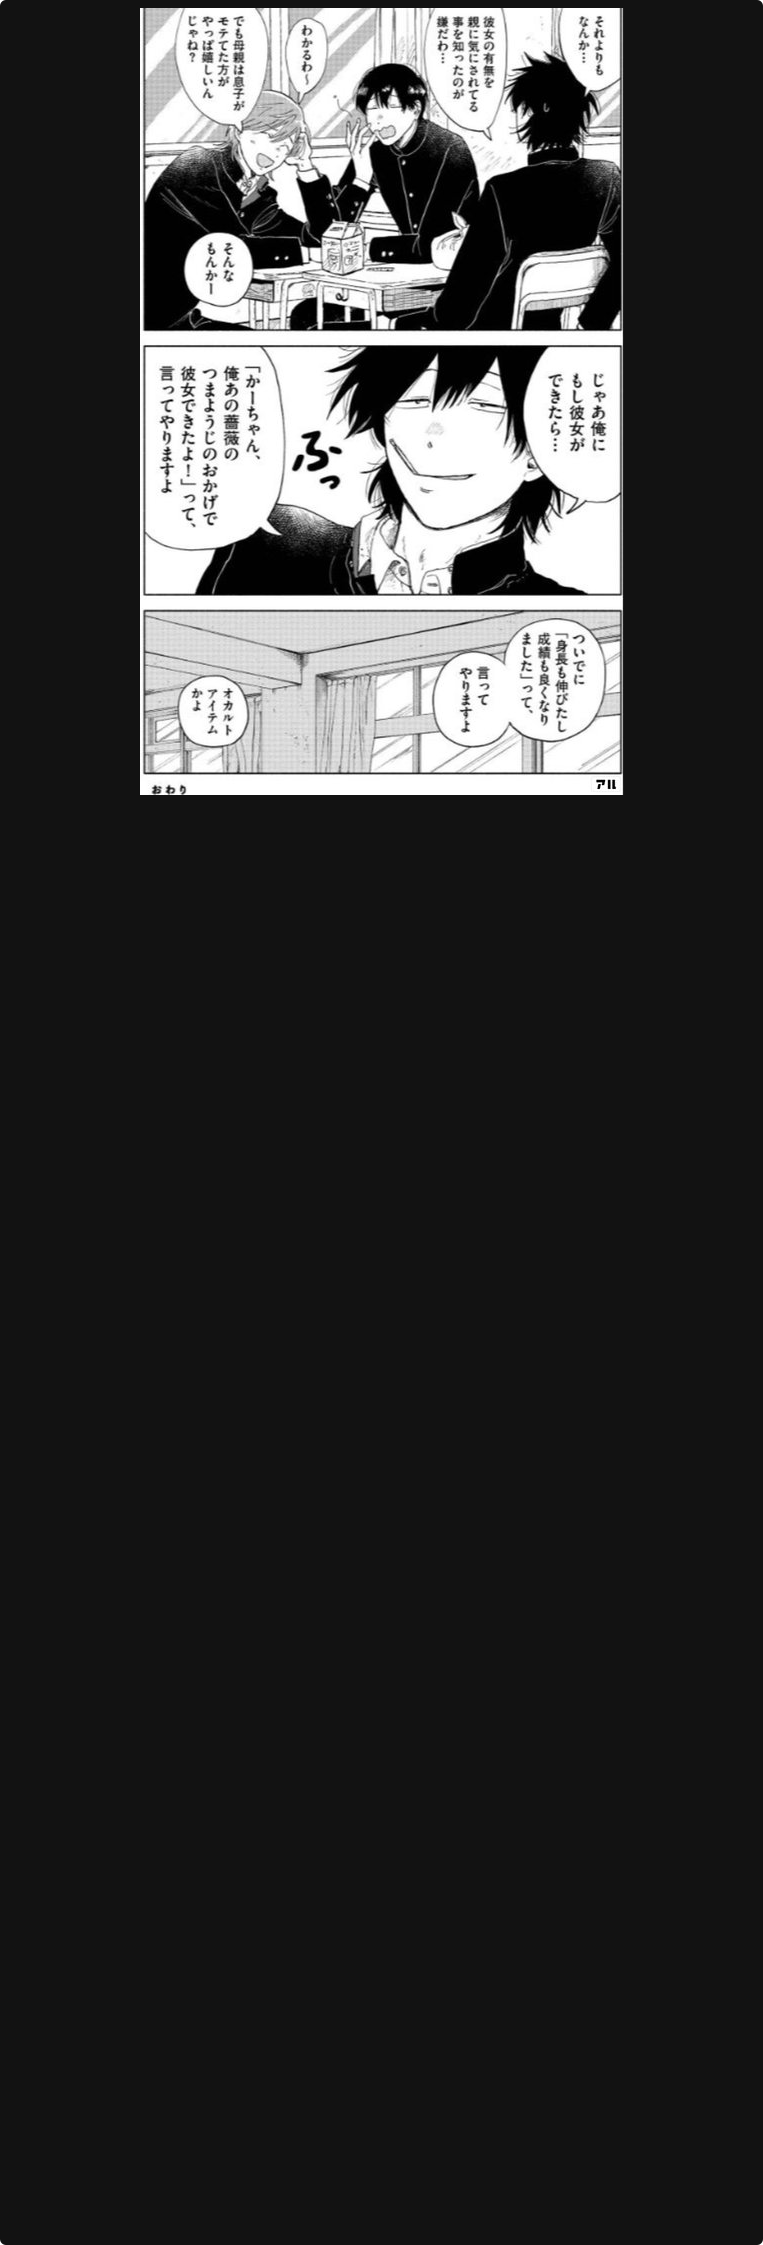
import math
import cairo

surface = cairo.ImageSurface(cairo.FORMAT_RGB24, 763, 2245)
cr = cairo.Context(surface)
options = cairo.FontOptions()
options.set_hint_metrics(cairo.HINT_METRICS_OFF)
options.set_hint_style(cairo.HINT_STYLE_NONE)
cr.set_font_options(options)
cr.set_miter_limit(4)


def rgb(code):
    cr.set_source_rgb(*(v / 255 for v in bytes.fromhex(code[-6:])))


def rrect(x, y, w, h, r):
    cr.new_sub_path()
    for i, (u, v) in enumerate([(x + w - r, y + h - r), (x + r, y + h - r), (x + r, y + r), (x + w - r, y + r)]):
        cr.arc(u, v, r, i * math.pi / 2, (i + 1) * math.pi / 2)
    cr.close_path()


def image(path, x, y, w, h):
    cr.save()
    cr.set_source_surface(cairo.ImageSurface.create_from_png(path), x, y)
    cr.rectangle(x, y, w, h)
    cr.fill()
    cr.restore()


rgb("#ffffff")
cr.paint()
rgb("#121212")
rrect(0, 0, 763, 2245, 6)
cr.fill()
image("img/1.png", 140, 8, 484, 787)
surface.write_to_png("page.png")
